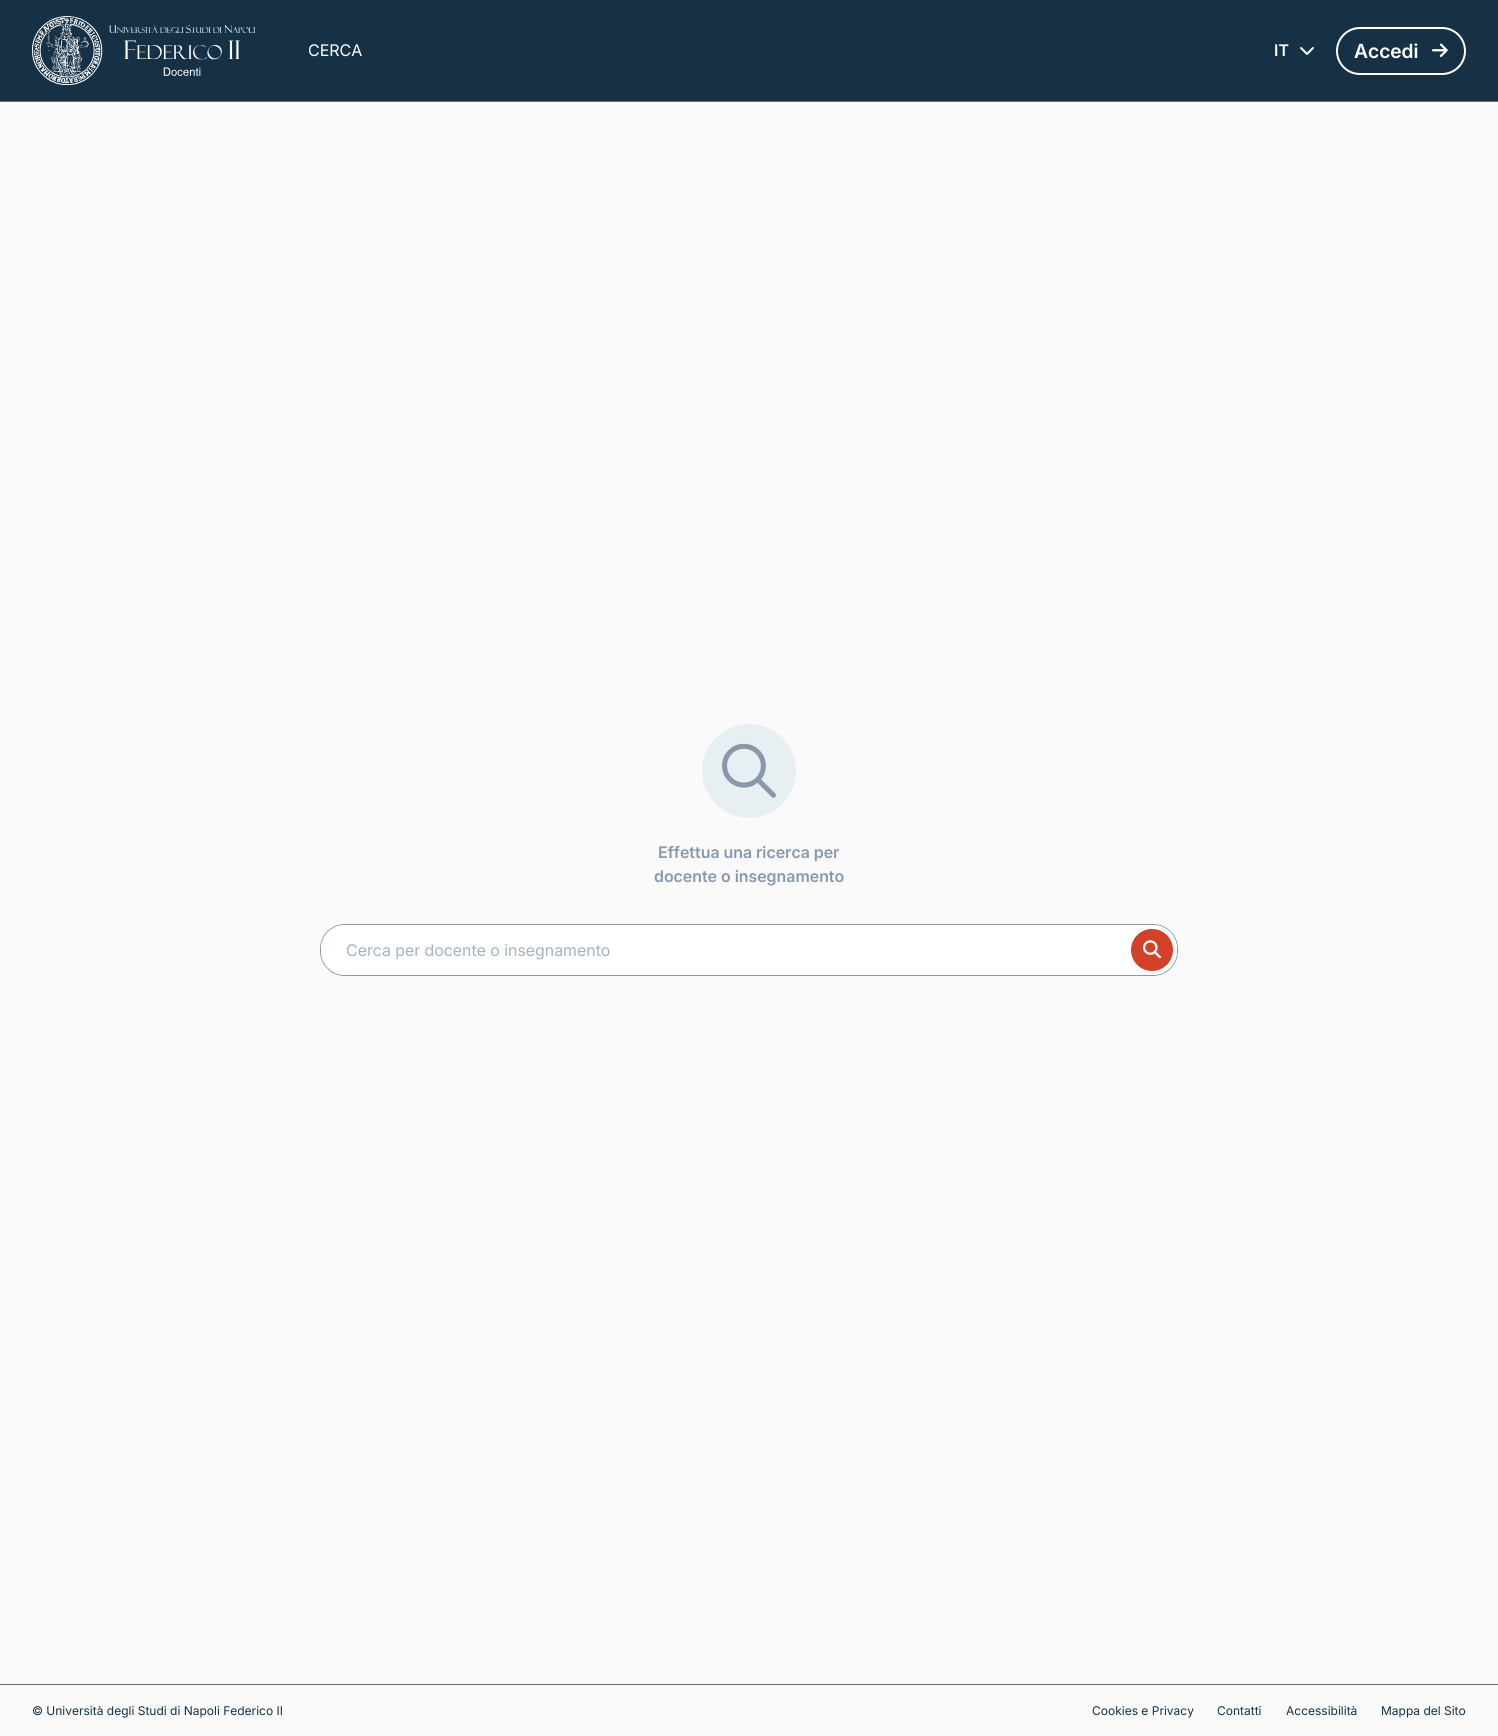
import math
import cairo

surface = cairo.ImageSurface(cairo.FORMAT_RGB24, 1498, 1736)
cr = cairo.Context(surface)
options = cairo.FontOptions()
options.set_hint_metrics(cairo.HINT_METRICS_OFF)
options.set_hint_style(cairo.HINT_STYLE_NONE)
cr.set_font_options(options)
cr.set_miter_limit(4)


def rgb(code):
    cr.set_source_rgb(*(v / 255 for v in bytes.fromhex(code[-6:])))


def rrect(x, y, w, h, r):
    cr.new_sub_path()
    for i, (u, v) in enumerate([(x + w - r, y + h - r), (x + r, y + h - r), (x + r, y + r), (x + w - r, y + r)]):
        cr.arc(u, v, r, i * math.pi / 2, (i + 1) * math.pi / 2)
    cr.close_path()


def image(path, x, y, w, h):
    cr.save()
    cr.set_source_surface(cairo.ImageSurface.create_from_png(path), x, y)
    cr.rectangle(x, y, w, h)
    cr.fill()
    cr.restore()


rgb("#fafafa")
cr.paint()
rgb("#163145")
cr.rectangle(0, 0, 1498, 101)
cr.fill()
rgb("#5c6f7d")
cr.rectangle(0, 101, 1498, 1)
cr.fill()
image("img/1.png", 32, 16, 223, 69)
image("img/2.png", 1300, 47, 14, 8)
rrect(1337, 28, 128, 46, 23)
rgb("#ffffff")
cr.stroke()
image("img/3.png", 1432, 43, 16, 14)
rgb("#e7eff3")
cr.arc(749, 771, 47, 0, 2 * math.pi)
cr.fill()
image("img/4.png", 722, 743, 54, 55)
rrect(320.5, 924.5, 857, 51, 24.5)
rgb("#8899aa")
cr.set_line_width(1)
cr.stroke()
rgb("#ffffff")
rrect(321, 925, 856, 50, 24)
cr.fill()
rgb("#d34228")
cr.arc(1152, 950, 21, 0, 2 * math.pi)
cr.fill()
image("img/5.png", 1143, 940, 18, 19)
rgb("#5c6f7d")
cr.rectangle(0, 1684, 1498, 1)
cr.fill()
cr.select_font_face("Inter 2")
cr.set_font_size(16)
rgb("#ffffff")
cr.move_to(308, 56)
cr.show_text("CERCA")
cr.select_font_face("Inter SemiBold")
cr.move_to(1274, 56)
cr.show_text("IT")
cr.select_font_face("Inter 2 SemiBold")
cr.set_font_size(19.5)
cr.move_to(1354, 58)
cr.show_text("Accedi")
cr.select_font_face("Inter SemiBold")
cr.set_font_size(16)
rgb("#8899aa")
cr.move_to(658, 858)
cr.show_text("Effettua una ricerca per")
cr.move_to(654, 882)
cr.show_text("docente o insegnamento")
cr.select_font_face("Inter")
rgb("#a5b3c0")
cr.move_to(346, 956)
cr.show_text("Cerca per docente o insegnamento")
cr.select_font_face("Inter 2")
cr.set_font_size(12)
rgb("#163145")
for x, y, s in [
    (32, 1715, "© Università degli Studi di Napoli Federico II"),
    (1092, 1715, "Cookies e Privacy"),
    (1217, 1715, "Contatti"),
    (1286, 1715, "Accessibilità"),
    (1381, 1715, "Mappa del Sito"),
]:
    cr.move_to(x, y)
    cr.show_text(s)
surface.write_to_png("page.png")
